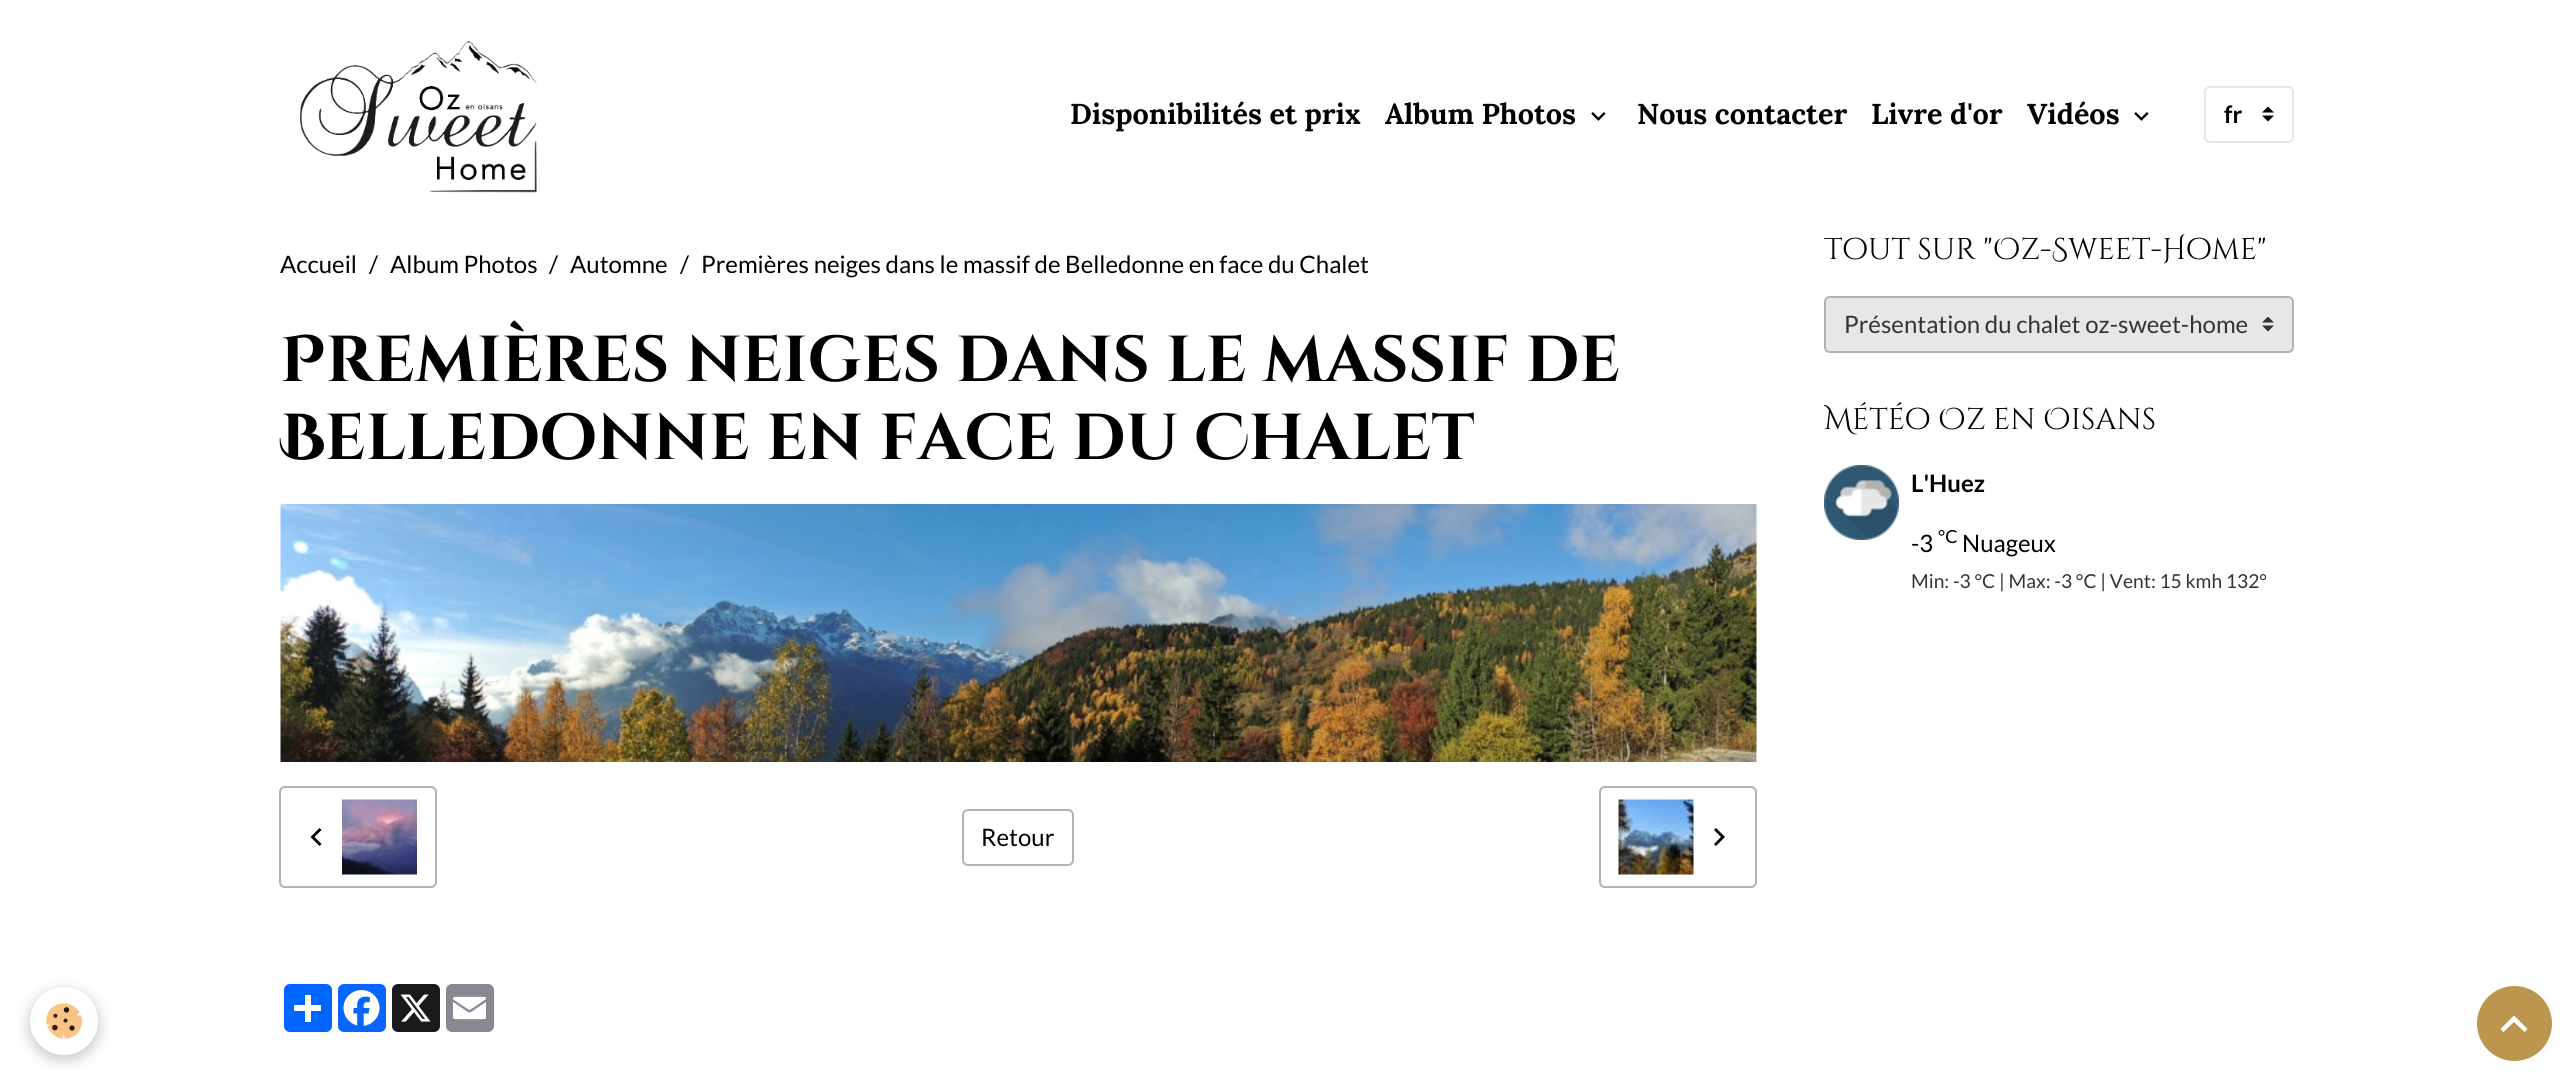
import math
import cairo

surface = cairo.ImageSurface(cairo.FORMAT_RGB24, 2573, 1083)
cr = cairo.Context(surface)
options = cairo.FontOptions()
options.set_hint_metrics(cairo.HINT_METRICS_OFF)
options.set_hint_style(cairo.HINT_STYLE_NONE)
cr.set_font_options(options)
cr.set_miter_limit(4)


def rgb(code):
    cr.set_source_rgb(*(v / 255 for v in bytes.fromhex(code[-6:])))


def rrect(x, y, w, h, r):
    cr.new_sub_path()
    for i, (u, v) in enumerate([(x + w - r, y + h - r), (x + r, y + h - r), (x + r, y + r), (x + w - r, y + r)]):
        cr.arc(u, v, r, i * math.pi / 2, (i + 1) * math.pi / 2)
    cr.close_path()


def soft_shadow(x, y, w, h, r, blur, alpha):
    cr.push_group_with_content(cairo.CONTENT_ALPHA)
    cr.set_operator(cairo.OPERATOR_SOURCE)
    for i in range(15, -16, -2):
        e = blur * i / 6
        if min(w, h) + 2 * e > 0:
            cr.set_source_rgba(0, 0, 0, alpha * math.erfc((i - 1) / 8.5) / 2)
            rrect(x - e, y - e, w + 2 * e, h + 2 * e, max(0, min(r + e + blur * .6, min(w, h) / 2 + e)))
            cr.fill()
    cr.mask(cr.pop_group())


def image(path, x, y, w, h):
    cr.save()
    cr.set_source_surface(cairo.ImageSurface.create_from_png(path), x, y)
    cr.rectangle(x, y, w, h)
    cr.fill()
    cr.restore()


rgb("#ffffff")
cr.paint()
image("img/1.png", 300, 41, 237, 152)
image("img/2.png", 1591, 112, 15, 9)
image("img/2.png", 2134, 112, 15, 9)
image("img/3.png", 2262, 107, 12, 15)
rrect(2205, 87, 88, 55, 5)
rgb("#e6e6e6")
cr.stroke()
image("img/4.png", 280, 504, 1477, 258)
rrect(280, 787, 156, 100, 5)
rgb("#b3b3b3")
cr.stroke()
rgb("#000000")
cr.new_path()
cr.move_to(321.5, 830)
cr.line_to(314.5, 837)
cr.line_to(321.5, 844)
cr.line_to(319.5, 846)
cr.line_to(310.5, 837)
cr.line_to(319.5, 828)
cr.close_path()
cr.fill()
image("img/5.png", 342, 799, 75, 76)
rrect(963, 810, 110, 55, 5)
rgb("#b3b3b3")
cr.stroke()
rrect(1600, 787, 156, 100, 5)
cr.stroke()
image("img/6.png", 1618, 799, 76, 76)
rgb("#000000")
cr.new_path()
cr.move_to(1716, 828)
cr.line_to(1725, 837)
cr.line_to(1716, 846)
cr.line_to(1714, 844)
cr.line_to(1721, 837)
cr.line_to(1714, 830)
cr.close_path()
cr.fill()
rgb("#0166ff")
rrect(284, 984, 48, 48, 6)
cr.fill()
rgb("#ffffff")
cr.rectangle(305, 995, 6, 27)
cr.fill()
cr.rectangle(294, 1005, 27, 6)
cr.fill()
rgb("#0866ff")
rrect(338, 984, 48, 48, 6)
cr.fill()
image("img/7.png", 343, 990, 37, 36)
rgb("#1a1a1a")
rrect(392, 984, 48, 48, 6)
cr.fill()
image("img/8.png", 400, 994, 31, 28)
rgb("#888990")
rrect(446, 984, 48, 48, 6)
cr.fill()
image("img/9.png", 453, 996, 33, 24)
rgb("#e7e7e7")
rrect(1824, 296, 470, 57, 6)
cr.fill()
image("img/10.png", 2262, 317, 12, 15)
rrect(1825, 297, 468, 55, 5)
rgb("#b3b3b3")
cr.stroke()
image("img/11.png", 1824, 465, 75, 75)
rgb("#000000")
soft_shadow(30, 992, 68, 67, 33.5, 7.5, 0.24)
rgb("#ffffff")
cr.arc(64, 1021, 34, 0, 2 * math.pi)
cr.fill()
image("img/12.png", 46, 1003, 37, 36)
rgb("#bc964f")
cr.arc(2514.5, 1023.5, 37.5, 0, 2 * math.pi)
cr.fill()
rgb("#ffffff")
cr.new_path()
cr.move_to(2514, 1015.5)
cr.line_to(2527.5, 1029)
cr.line_to(2524.5, 1032)
cr.line_to(2514, 1022)
cr.line_to(2503.5, 1032)
cr.line_to(2500.5, 1029)
cr.close_path()
cr.fill()
cr.select_font_face("Lora", cairo.FONT_SLANT_NORMAL, cairo.FONT_WEIGHT_BOLD)
cr.set_font_size(28.75)
rgb("#000000")
for x, y, s in [
    (1070, 124, "Disponibilités et prix"),
    (1385, 124, "Album Photos"),
    (1637, 124, "Nous contacter"),
    (1871, 124, "Livre d'or"),
    (2027, 124, "Vidéos"),
]:
    cr.move_to(x, y)
    cr.show_text(s)
cr.select_font_face("Lato", cairo.FONT_SLANT_NORMAL, cairo.FONT_WEIGHT_BOLD)
cr.set_font_size(24)
cr.move_to(2224, 123)
cr.show_text("fr")
cr.select_font_face("Lato")
for x, y, s in [
    (280, 273, "Accueil"),
    (369, 273, "/"),
    (390, 273, "Album Photos"),
    (549, 273, "/"),
    (570, 273, "Automne"),
    (680, 273, "/"),
    (701, 273, "Premières neiges dans le massif de Belledonne en face du Chalet"),
]:
    cr.move_to(x, y)
    cr.show_text(s)
cr.select_font_face("Cinzel Decorative", cairo.FONT_SLANT_NORMAL, cairo.FONT_WEIGHT_BOLD)
cr.set_font_size(64.8)
cr.move_to(280, 381)
cr.show_text("Premières neiges dans le massif de")
cr.move_to(280, 459)
cr.show_text("Belledonne en face du Chalet")
cr.select_font_face("Lato")
cr.set_font_size(24)
cr.move_to(981, 846)
cr.show_text("Retour")
cr.save()
cr.rectangle(1824, 228, 470, 125)
cr.clip()
cr.select_font_face("Cinzel Decorative")
cr.set_font_size(30)
cr.move_to(1824, 259)
cr.show_text("Tout sur \"Oz-Sweet-Home\"")
cr.restore()
rgb("#333333")
cr.move_to(1844, 333)
cr.show_text("Présentation du chalet oz-sweet-home")
cr.save()
cr.rectangle(1824, 398, 470, 199)
cr.clip()
cr.select_font_face("Cinzel Decorative")
cr.set_font_size(30)
rgb("#000000")
cr.move_to(1824, 429)
cr.show_text("Météo Oz en Oisans")
cr.restore()
cr.select_font_face("Lato", cairo.FONT_SLANT_NORMAL, cairo.FONT_WEIGHT_BOLD)
rgb("#000000")
cr.move_to(1911, 492)
cr.show_text("L'Huez")
cr.select_font_face("Lato")
cr.move_to(1911, 552)
cr.show_text("-3")
cr.set_font_size(18)
cr.move_to(1938, 543)
cr.show_text("°C")
cr.set_font_size(24)
cr.move_to(1962, 552)
cr.show_text("Nuageux")
cr.set_font_size(19.25)
rgb("#333333")
cr.move_to(1911, 588)
cr.show_text("Min: -3 °C | Max: -3 °C | Vent: 15 kmh 132°")
surface.write_to_png("page.png")
